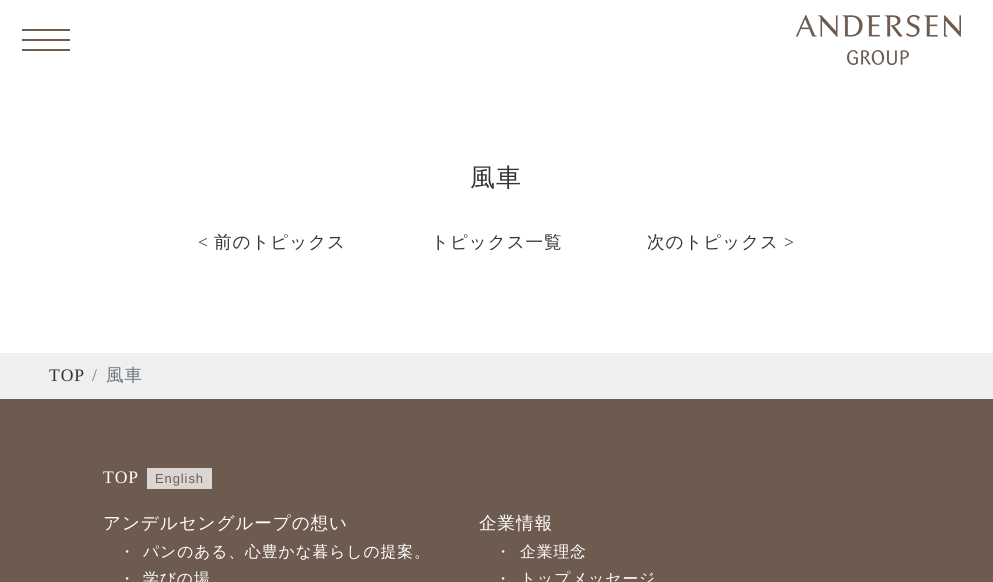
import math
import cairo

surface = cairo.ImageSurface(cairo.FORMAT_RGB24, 993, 582)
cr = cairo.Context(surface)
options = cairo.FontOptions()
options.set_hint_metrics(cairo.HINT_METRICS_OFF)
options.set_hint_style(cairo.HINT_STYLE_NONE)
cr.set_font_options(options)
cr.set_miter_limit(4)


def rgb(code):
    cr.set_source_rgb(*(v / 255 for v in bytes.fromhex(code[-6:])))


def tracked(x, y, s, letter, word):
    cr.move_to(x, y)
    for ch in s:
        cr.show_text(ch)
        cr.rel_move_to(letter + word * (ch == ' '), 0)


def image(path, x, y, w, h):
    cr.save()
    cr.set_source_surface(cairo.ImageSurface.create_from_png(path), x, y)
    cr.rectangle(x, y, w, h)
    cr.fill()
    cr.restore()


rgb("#ffffff")
cr.paint()
for x, y, w, h, color in [
    (22, 29, 48, 2, "#6e5b4f"),
    (22, 39, 48, 2, "#6e5b4f"),
    (22, 49, 48, 2, "#6e5b4f"),
]:
    rgb(color)
    cr.rectangle(x, y, w, h)
    cr.fill()
image("img/1.png", 796, 15, 165, 50)
for x, y, w, h, color in [
    (0, 353, 993, 46, "#efefef"),
    (0, 399, 993, 183, "#6e5b4f"),
    (147, 468, 65, 21, "#dbd6d3"),
]:
    rgb(color)
    cr.rectangle(x, y, w, h)
    cr.fill()
cr.select_font_face("WenQuanYi Zen Hei Medium")
cr.set_font_size(25)
rgb("#333333")
tracked(470, 186, "風車", 0.9, 0)
cr.select_font_face("Liberation Serif")
cr.set_font_size(17.6)
tracked(198, 248, "<", 0.9, 0)
cr.select_font_face("WenQuanYi Zen Hei Medium")
for x, y, s in [
    (214, 248, "前のトピックス"),
    (431, 248, "トピックス一覧"),
    (647, 248, "次のトピックス"),
]:
    tracked(x, y, s, 0.9, 0)
cr.select_font_face("Liberation Serif")
tracked(784, 248, ">", 0.9, 0)
tracked(49, 381, "TOP", 0.9, 0)
rgb("#6c757d")
tracked(92, 381, "/", 0.9, 0)
cr.select_font_face("WenQuanYi Zen Hei Medium")
tracked(106, 381, "風車", 0.9, 0)
cr.select_font_face("Liberation Serif")
rgb("#ffffff")
tracked(103, 483, "TOP", 0.9, 0)
cr.select_font_face("Liberation Sans")
cr.set_font_size(13)
rgb("#6e5b4f")
tracked(155, 483, "English", 0.9, 0)
cr.select_font_face("WenQuanYi Zen Hei Medium")
cr.set_font_size(17.6)
rgb("#ffffff")
tracked(103, 529, "アンデルセングループの想い", 0.9, 0)
cr.set_font_size(15.8)
for x, y, s in [
    (119, 557, "・"),
    (143, 557, "パンのある、心豊かな暮らしの提案。"),
    (119, 584, "・"),
    (143, 584, "学びの場"),
]:
    tracked(x, y, s, 0.9, 0)
cr.set_font_size(17.6)
tracked(479, 529, "企業情報", 0.9, 0)
cr.set_font_size(15.8)
for x, y, s in [
    (495, 557, "・"),
    (520, 557, "企業理念"),
    (495, 584, "・"),
    (520, 584, "トップメッセージ"),
]:
    tracked(x, y, s, 0.9, 0)
surface.write_to_png("page.png")
